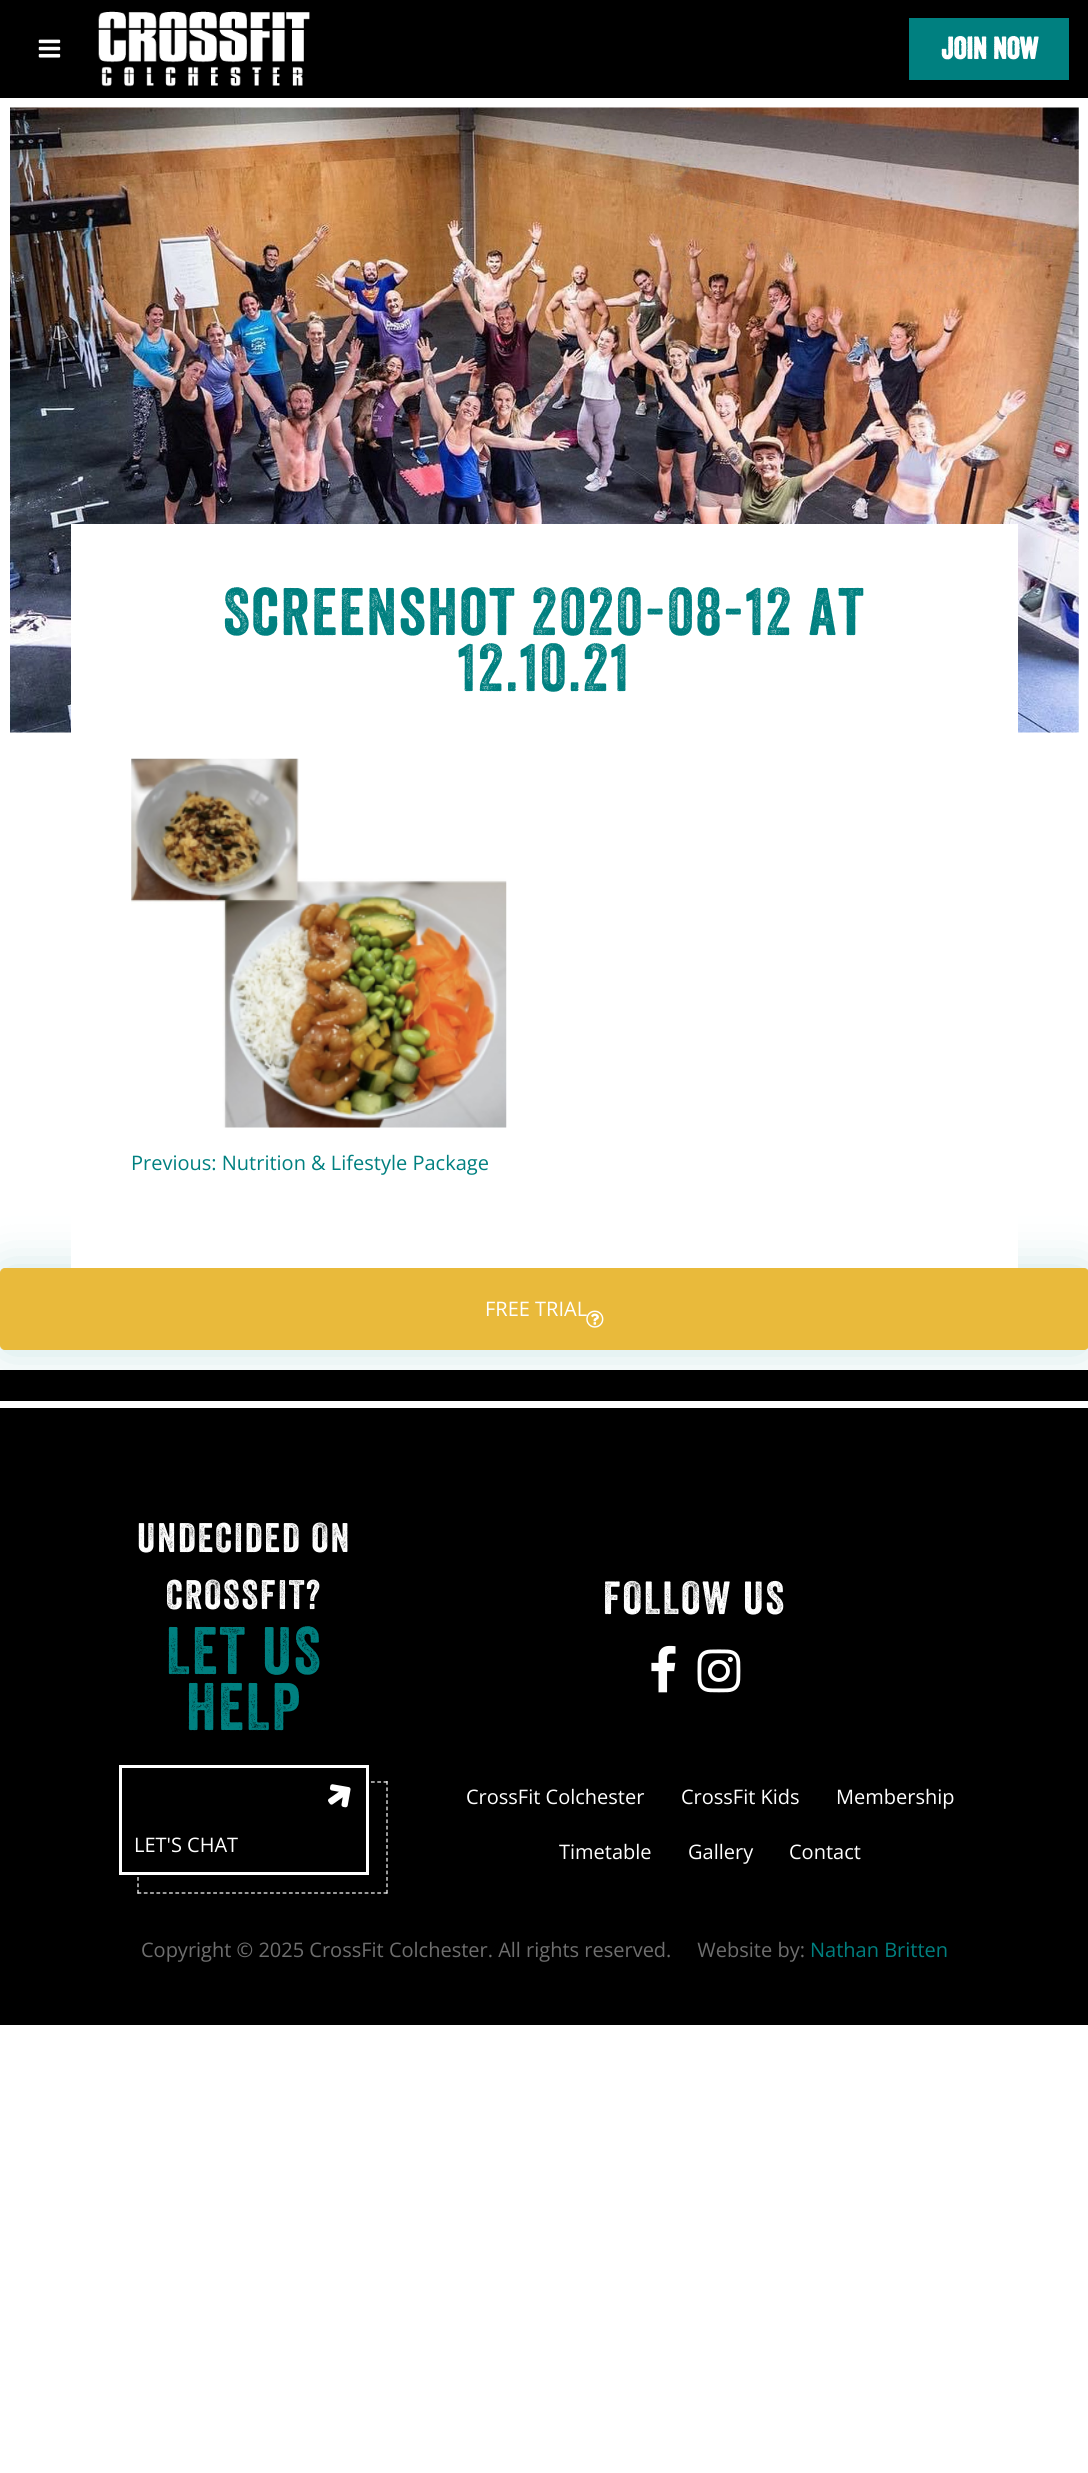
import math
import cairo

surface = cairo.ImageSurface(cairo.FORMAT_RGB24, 1088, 2473)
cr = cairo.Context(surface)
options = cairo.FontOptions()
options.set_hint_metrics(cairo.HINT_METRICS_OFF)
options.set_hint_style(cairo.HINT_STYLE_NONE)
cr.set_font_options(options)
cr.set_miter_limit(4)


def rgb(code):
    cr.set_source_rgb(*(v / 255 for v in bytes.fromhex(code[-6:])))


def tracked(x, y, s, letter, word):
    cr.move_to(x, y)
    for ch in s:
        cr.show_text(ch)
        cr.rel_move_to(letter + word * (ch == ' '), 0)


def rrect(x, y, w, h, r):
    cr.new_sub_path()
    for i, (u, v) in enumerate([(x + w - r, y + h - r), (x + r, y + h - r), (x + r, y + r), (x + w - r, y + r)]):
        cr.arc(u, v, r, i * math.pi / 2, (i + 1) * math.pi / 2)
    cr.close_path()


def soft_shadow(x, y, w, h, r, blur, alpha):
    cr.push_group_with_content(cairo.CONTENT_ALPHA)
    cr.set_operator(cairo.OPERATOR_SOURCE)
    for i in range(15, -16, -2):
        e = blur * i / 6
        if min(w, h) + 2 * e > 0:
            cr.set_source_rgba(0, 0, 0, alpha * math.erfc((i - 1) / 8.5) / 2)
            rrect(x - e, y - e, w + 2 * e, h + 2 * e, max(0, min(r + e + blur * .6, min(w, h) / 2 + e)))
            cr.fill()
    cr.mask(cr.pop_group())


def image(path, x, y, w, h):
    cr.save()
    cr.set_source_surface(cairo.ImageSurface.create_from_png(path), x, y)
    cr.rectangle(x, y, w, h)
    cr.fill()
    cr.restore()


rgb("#ffffff")
cr.paint()
rgb("#000000")
cr.rectangle(0, 0, 1088, 98)
cr.fill()
image("img/1.png", 38, 39, 23, 19)
image("img/2.png", 98, 11, 212, 76)
rgb("#008080")
cr.rectangle(909, 18, 160, 62)
cr.fill()
image("img/3.png", 10, 107, 1069, 626)
rgb("#008080")
soft_shadow(-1, 1268, 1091, 85, 6, 24, 0.2)
rgb("#ffffff")
cr.rectangle(71, 524, 947, 744)
cr.fill()
image("img/4.png", 131, 758, 376, 370)
rgb("#e9ba3b")
rrect(0.5, 1268.5, 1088, 81, 4.5)
cr.fill_preserve()
cr.set_line_width(1)
cr.stroke()
rgb("#000000")
cr.rectangle(0, 1370, 1088, 655)
cr.fill()
rgb("#ffffff")
cr.rectangle(0, 1401, 1088, 7)
cr.fill()
cr.new_path()
cr.move_to(137.5, 1782)
cr.line_to(387.5, 1782)
cr.set_line_width(1.2)
cr.set_dash([3.75, 2.56])
cr.stroke()
cr.new_path()
cr.move_to(387, 1781)
cr.line_to(387, 1894)
cr.set_dash([3.75, 2.65])
cr.stroke()
cr.new_path()
cr.move_to(137.5, 1893)
cr.line_to(387.5, 1893)
cr.set_dash([3.75, 2.56])
cr.stroke()
cr.new_path()
cr.move_to(138, 1781)
cr.line_to(138, 1894)
cr.set_dash([3.75, 2.65])
cr.stroke()
rgb("#000000")
cr.rectangle(137, 1781, 229, 91)
cr.fill()
cr.rectangle(120.5, 1766.5, 247, 107)
rgb("#ffffff")
cr.set_line_width(3)
cr.set_dash([])
cr.stroke()
image("img/6.png", 328, 1784, 23, 24)
image("img/7.png", 651, 1645, 25, 48)
image("img/8.png", 697, 1649, 44, 44)
cr.select_font_face("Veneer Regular", cairo.FONT_SLANT_NORMAL, cairo.FONT_WEIGHT_BOLD)
cr.set_font_size(30)
cr.move_to(941, 59)
cr.show_text("JOIN NOW")
cr.select_font_face("Veneer Regular")
cr.set_font_size(65)
rgb("#008080")
tracked(223, 635, "Screenshot 2020-08-12 at", 2, 0)
tracked(458, 691, "12.10.21", 2, 0)
cr.select_font_face("Open Sans")
cr.set_font_size(20)
cr.move_to(131, 1170)
cr.show_text("Previous: Nutrition & Lifestyle Package")
rgb("#ffffff")
cr.move_to(485, 1316)
cr.show_text("FREE TRIAL")
image("img/5.png", 586, 1310, 18, 18)
cr.select_font_face("Veneer Regular")
cr.set_font_size(40)
tracked(137, 1552, "UNDECIDED ON", 2, 0)
tracked(166, 1609, "CROSSFIT?", 2, 0)
cr.set_font_size(65)
rgb("#008080")
tracked(166, 1674, "LET US", 2, 0)
tracked(186, 1730, "HELP", 2, 0)
cr.select_font_face("Open Sans")
cr.set_font_size(20)
rgb("#ffffff")
cr.move_to(134, 1852)
cr.show_text("LET'S CHAT")
cr.select_font_face("Veneer Regular")
cr.set_font_size(45)
tracked(603, 1614, "FOLLOW US", 2, 0)
cr.select_font_face("Open Sans")
cr.set_font_size(20)
for x, y, s in [
    (466, 1804, "CrossFit Colchester"),
    (681, 1804, "CrossFit Kids"),
    (836, 1804, "Membership"),
    (559, 1859, "Timetable"),
    (688, 1859, "Gallery"),
    (789, 1859, "Contact"),
]:
    cr.move_to(x, y)
    cr.show_text(s)
rgb("#6e6e6e")
cr.move_to(141, 1957)
cr.show_text("Copyright © 2025 CrossFit Colchester. All rights reserved.     Website by:")
rgb("#008080")
cr.move_to(810, 1957)
cr.show_text("Nathan Britten")
surface.write_to_png("page.png")
